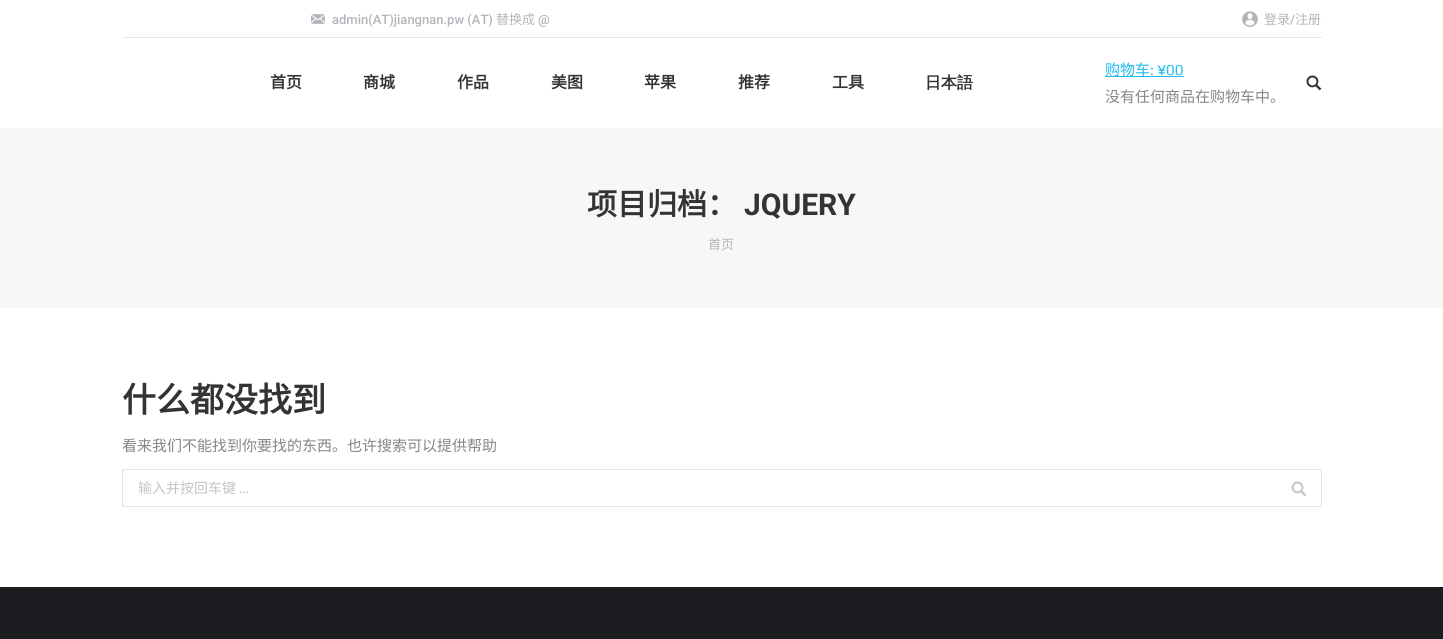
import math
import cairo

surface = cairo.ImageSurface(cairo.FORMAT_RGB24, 1443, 639)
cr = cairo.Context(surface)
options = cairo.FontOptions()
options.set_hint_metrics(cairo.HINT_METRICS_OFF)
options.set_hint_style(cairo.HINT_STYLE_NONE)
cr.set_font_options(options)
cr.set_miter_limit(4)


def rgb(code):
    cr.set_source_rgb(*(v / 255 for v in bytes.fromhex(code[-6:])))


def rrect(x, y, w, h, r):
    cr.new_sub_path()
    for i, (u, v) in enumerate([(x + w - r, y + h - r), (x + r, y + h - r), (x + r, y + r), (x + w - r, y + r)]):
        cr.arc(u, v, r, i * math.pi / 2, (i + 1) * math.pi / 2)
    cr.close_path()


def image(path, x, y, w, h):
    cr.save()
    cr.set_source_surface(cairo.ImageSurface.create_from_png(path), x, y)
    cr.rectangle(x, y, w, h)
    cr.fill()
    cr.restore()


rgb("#ffffff")
cr.paint()
image("img/1.png", 311, 14, 14, 10)
image("img/2.png", 1242, 11, 16, 16)
rgb("#e7e7e7")
cr.rectangle(122, 37, 1200, 1)
cr.fill()
rgb("#1ebbf0")
cr.rectangle(1105, 76, 79, 1)
cr.fill()
image("img/3.png", 1306, 75, 16, 16)
rgb("#f7f7f7")
cr.rectangle(0, 128, 1443, 180)
cr.fill()
rrect(122.5, 469.5, 1199, 37, 0.5)
rgb("#e5e5e5")
cr.set_line_width(1)
cr.stroke()
image("img/4.png", 1291, 481, 16, 16)
rgb("#1a1c20")
cr.rectangle(0, 587, 1443, 52)
cr.fill()
cr.select_font_face("Roboto Medium")
cr.set_font_size(13)
rgb("#b4b5bb")
cr.move_to(332, 24)
cr.show_text("admin(AT)jiangnan.pw (AT)")
cr.select_font_face("Noto Sans CJK SC")
cr.move_to(496, 24)
cr.show_text("替换成")
cr.select_font_face("Roboto Medium")
cr.move_to(538, 24)
cr.show_text("@")
cr.select_font_face("Noto Sans CJK SC")
cr.move_to(1264, 24)
cr.show_text("登录")
cr.select_font_face("Roboto Medium")
cr.move_to(1290, 24)
cr.show_text("/")
cr.select_font_face("Noto Sans CJK SC")
cr.move_to(1295, 24)
cr.show_text("注册")
cr.select_font_face("Noto Sans CJK SC", cairo.FONT_SLANT_NORMAL, cairo.FONT_WEIGHT_BOLD)
cr.set_font_size(16)
rgb("#333333")
for x, y, s in [
    (270, 88, "首页"),
    (363, 88, "商城"),
    (457, 88, "作品"),
    (551, 88, "美图"),
    (644, 88, "苹果"),
    (738, 88, "推荐"),
    (832, 88, "工具"),
]:
    cr.move_to(x, y)
    cr.show_text(s)
cr.select_font_face("WenQuanYi Zen Hei", cairo.FONT_SLANT_NORMAL, cairo.FONT_WEIGHT_BOLD)
cr.move_to(925, 88)
cr.show_text("日本語")
cr.select_font_face("Noto Sans CJK SC")
cr.set_font_size(15)
rgb("#1ebbf0")
cr.move_to(1105, 75)
cr.show_text("购物车")
cr.select_font_face("Play")
cr.move_to(1150, 75)
cr.show_text(": ¥00")
cr.select_font_face("Noto Sans CJK SC")
rgb("#85868c")
cr.move_to(1105, 102)
cr.show_text("没有任何商品在购物车中。")
cr.select_font_face("Noto Sans CJK SC", cairo.FONT_SLANT_NORMAL, cairo.FONT_WEIGHT_BOLD)
cr.set_font_size(30)
rgb("#333333")
cr.move_to(587, 215)
cr.show_text("项目归档：")
cr.select_font_face("Roboto", cairo.FONT_SLANT_NORMAL, cairo.FONT_WEIGHT_BOLD)
cr.move_to(744, 215)
cr.show_text("JQUERY")
cr.select_font_face("Noto Sans CJK SC")
cr.set_font_size(13)
rgb("#b4b5bb")
cr.move_to(708, 249)
cr.show_text("首页")
cr.select_font_face("Noto Sans CJK SC", cairo.FONT_SLANT_NORMAL, cairo.FONT_WEIGHT_BOLD)
cr.set_font_size(34)
rgb("#333333")
cr.move_to(122, 412)
cr.show_text("什么都没找到")
cr.select_font_face("Noto Sans CJK SC")
cr.set_font_size(15)
rgb("#85868c")
cr.move_to(122, 451)
cr.show_text("看来我们不能找到你要找的东西。也许搜索可以提供帮助")
cr.set_font_size(14)
rgb("#c4c5c9")
cr.move_to(138, 493)
cr.show_text("输入并按回车键")
cr.select_font_face("Play")
cr.move_to(239, 493)
cr.show_text("…")
surface.write_to_png("page.png")
